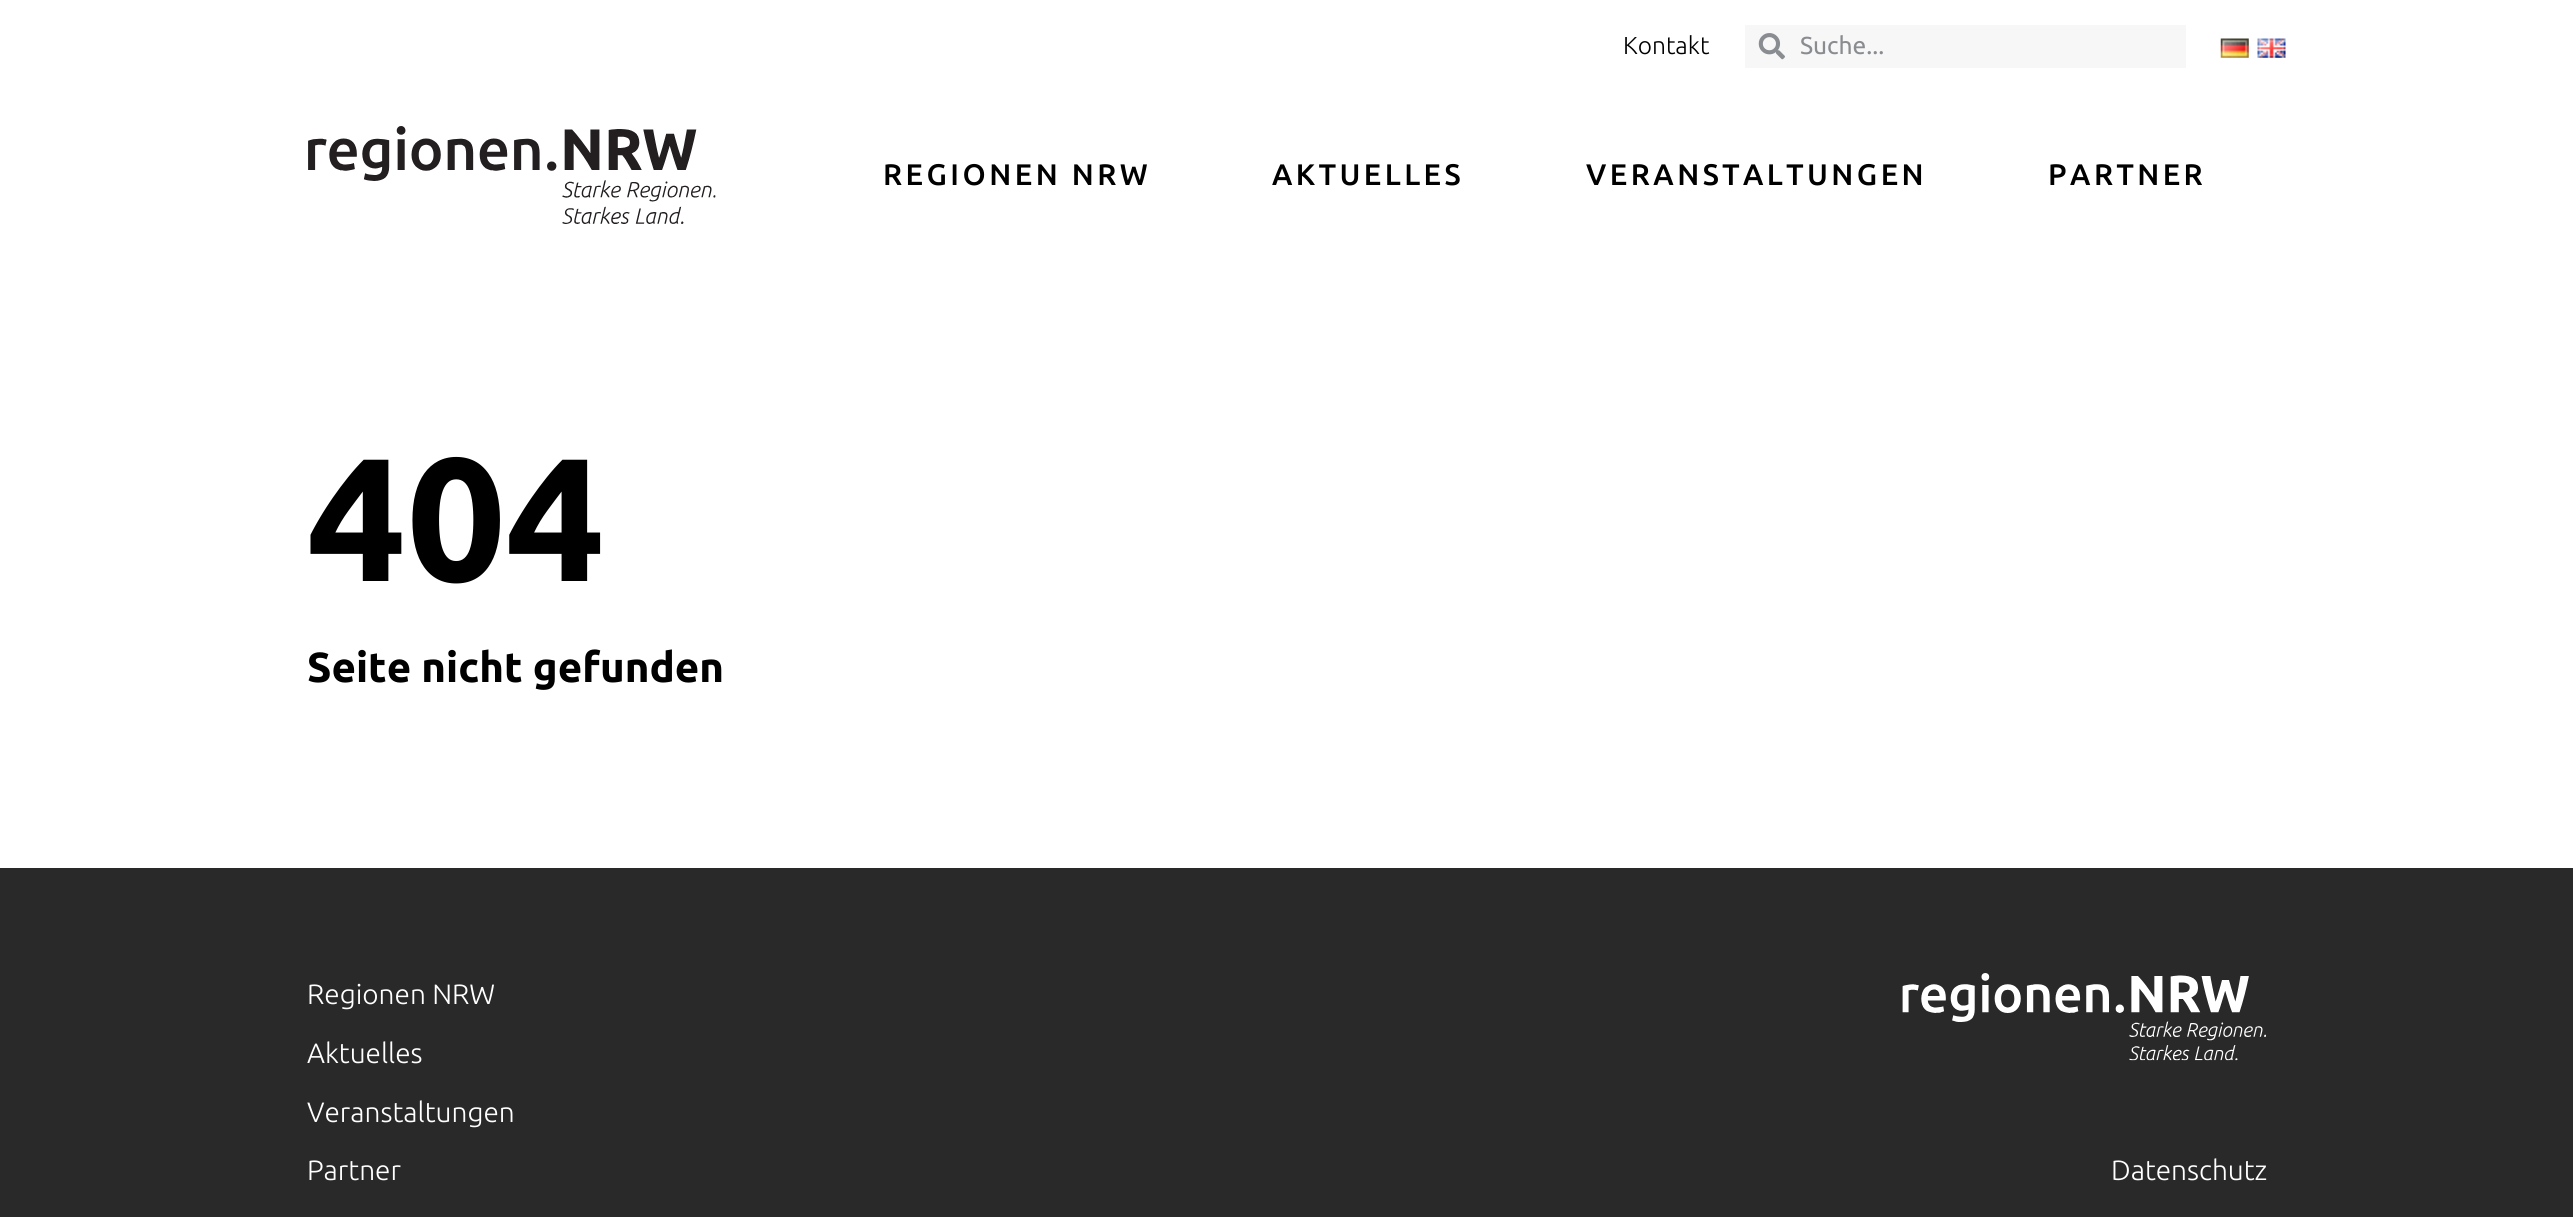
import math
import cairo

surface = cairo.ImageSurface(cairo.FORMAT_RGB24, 2573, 1217)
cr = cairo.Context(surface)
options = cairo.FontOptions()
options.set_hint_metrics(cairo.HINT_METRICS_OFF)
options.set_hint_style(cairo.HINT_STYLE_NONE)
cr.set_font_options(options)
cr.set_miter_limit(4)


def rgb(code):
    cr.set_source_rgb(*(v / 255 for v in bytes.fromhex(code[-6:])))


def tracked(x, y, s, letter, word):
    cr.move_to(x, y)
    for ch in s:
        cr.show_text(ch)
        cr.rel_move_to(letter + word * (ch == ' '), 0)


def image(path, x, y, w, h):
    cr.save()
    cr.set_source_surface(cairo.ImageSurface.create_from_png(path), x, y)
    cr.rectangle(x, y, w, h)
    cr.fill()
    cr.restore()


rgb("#ffffff")
cr.paint()
rgb("#f7f7f7")
cr.rectangle(1745, 25, 441, 43)
cr.fill()
image("img/1.png", 1758, 33, 27, 27)
image("img/2.png", 2220, 38, 29, 20)
image("img/3.png", 2257, 38, 29, 20)
image("img/4.png", 308, 126, 408, 98)
rgb("#292929")
cr.rectangle(0, 868, 2573, 349)
cr.fill()
image("img/5.png", 1902, 973, 364, 88)
cr.select_font_face("Ubuntu Light")
cr.set_font_size(24.5)
rgb("#000000")
cr.move_to(1623, 54)
cr.show_text("Kontakt")
cr.select_font_face("Ubuntu")
rgb("#898c90")
cr.move_to(1800, 54)
cr.show_text("Suche...")
cr.select_font_face("Ubuntu Medium")
cr.set_font_size(29.75)
rgb("#000000")
for x, y, s in [
    (883, 185, "REGIONEN NRW"),
    (1272, 185, "AKTUELLES"),
    (1586, 185, "VERANSTALTUNGEN"),
    (2048, 185, "PARTNER"),
]:
    tracked(x, y, s, 3.5, 0)
cr.select_font_face("Ubuntu", cairo.FONT_SLANT_NORMAL, cairo.FONT_WEIGHT_BOLD)
cr.set_font_size(175)
cr.move_to(307, 581)
cr.show_text("404")
cr.set_font_size(42)
cr.move_to(307, 682)
cr.show_text("Seite nicht gefunden")
cr.select_font_face("Ubuntu Light")
cr.set_font_size(28)
rgb("#ffffff")
for x, y, s in [
    (307, 1004, "Regionen NRW"),
    (307, 1063, "Aktuelles"),
    (307, 1122, "Veranstaltungen"),
    (307, 1180, "Partner"),
    (2111, 1180, "Datenschutz"),
]:
    cr.move_to(x, y)
    cr.show_text(s)
surface.write_to_png("page.png")
